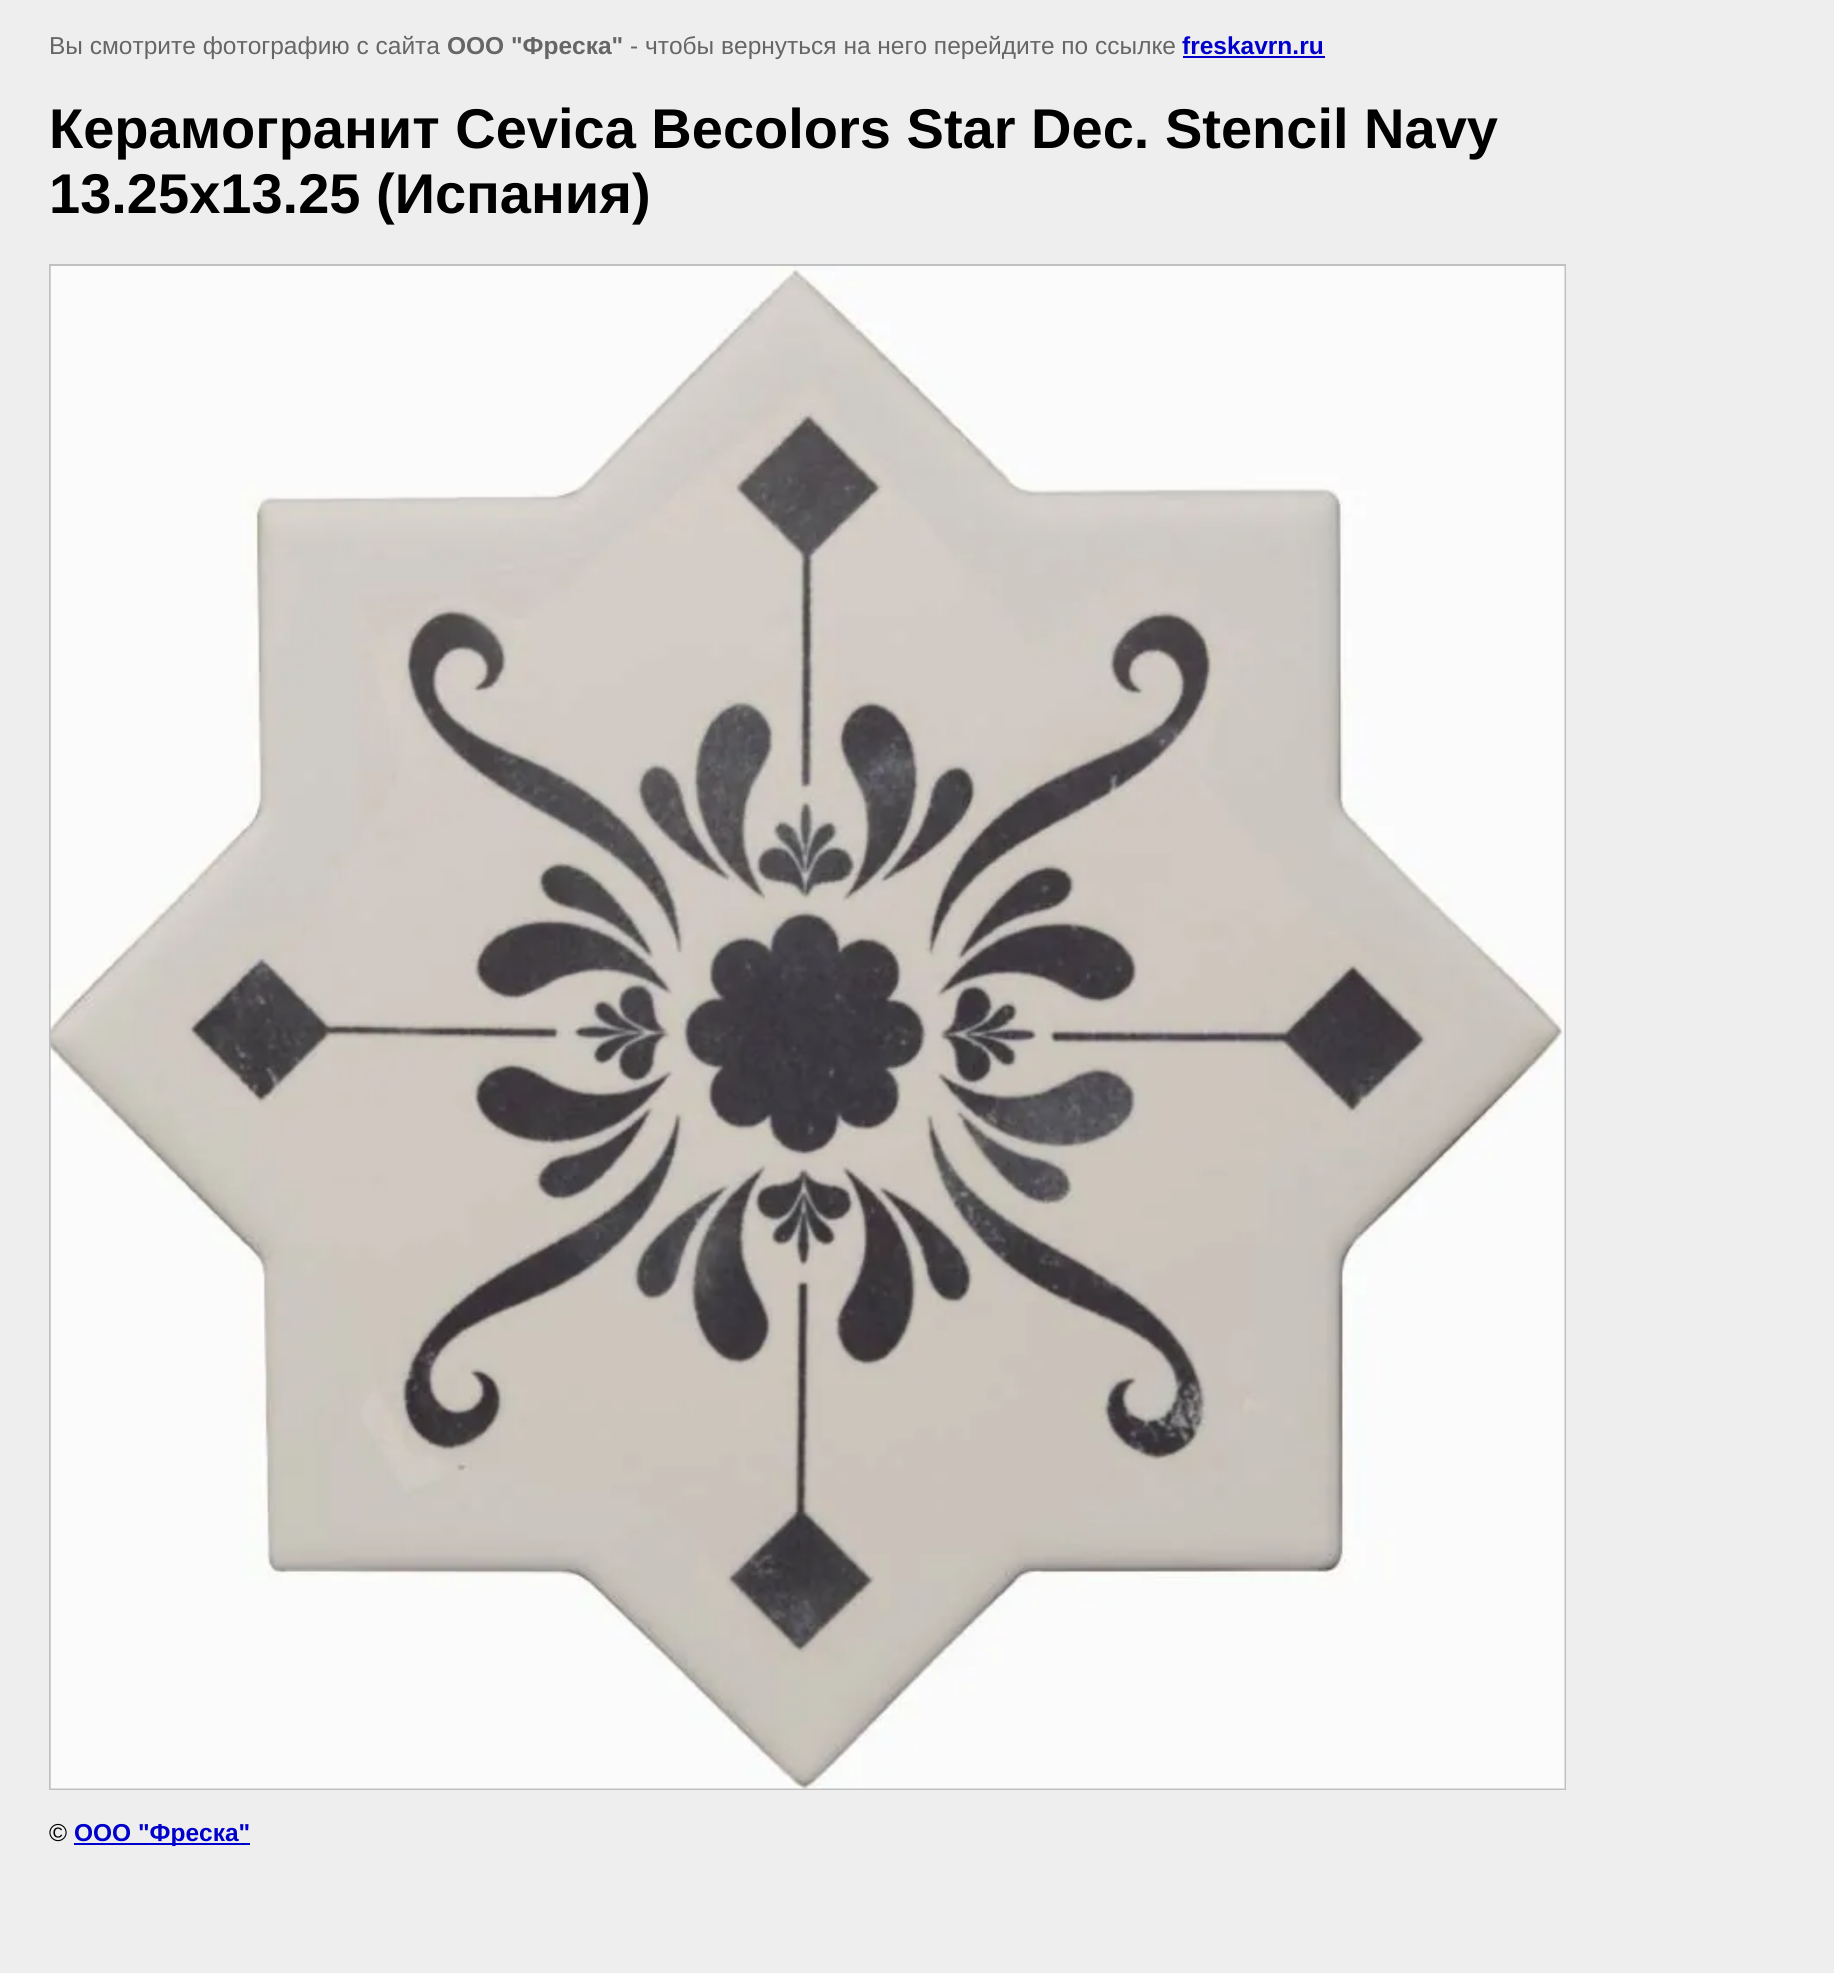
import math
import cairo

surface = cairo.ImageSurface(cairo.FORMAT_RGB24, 1834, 1973)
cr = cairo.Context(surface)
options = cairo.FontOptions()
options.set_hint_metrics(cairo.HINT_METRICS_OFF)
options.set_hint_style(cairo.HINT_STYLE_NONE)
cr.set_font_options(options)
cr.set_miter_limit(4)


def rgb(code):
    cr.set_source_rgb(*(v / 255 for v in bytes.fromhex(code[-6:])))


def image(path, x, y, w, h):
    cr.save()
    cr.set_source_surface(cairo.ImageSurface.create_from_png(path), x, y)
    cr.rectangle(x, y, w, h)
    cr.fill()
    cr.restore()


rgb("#eeeeee")
cr.paint()
rgb("#0000cc")
cr.rectangle(1183, 56, 142, 2)
cr.fill()
cr.rectangle(50, 265, 1515, 1524)
rgb("#c0c0c0")
cr.stroke()
image("img/1.png", 50, 266, 1515, 1523)
rgb("#0000cc")
cr.rectangle(74, 1843, 176, 2)
cr.fill()
cr.select_font_face("Liberation Sans")
cr.set_font_size(24.5)
rgb("#666666")
cr.move_to(49, 54)
cr.show_text("Вы смотрите фотографию с сайта")
cr.select_font_face("Liberation Sans", cairo.FONT_SLANT_NORMAL, cairo.FONT_WEIGHT_BOLD)
cr.move_to(447, 54)
cr.show_text("ООО \"Фреска\"")
cr.select_font_face("Liberation Sans")
cr.move_to(630, 54)
cr.show_text("- чтобы вернуться на него перейдите по ссылке")
cr.select_font_face("Liberation Sans", cairo.FONT_SLANT_NORMAL, cairo.FONT_WEIGHT_BOLD)
rgb("#0000cc")
cr.move_to(1182, 54)
cr.show_text("freskavrn.ru")
cr.set_font_size(56)
rgb("#000000")
cr.move_to(49, 148)
cr.show_text("Керамогранит Cevica Becolors Star Dec. Stencil Navy")
cr.move_to(49, 213)
cr.show_text("13.25х13.25 (Испания)")
cr.select_font_face("Liberation Sans")
cr.set_font_size(24.5)
cr.move_to(49, 1841)
cr.show_text("©")
cr.select_font_face("Liberation Sans", cairo.FONT_SLANT_NORMAL, cairo.FONT_WEIGHT_BOLD)
rgb("#0000cc")
cr.move_to(74, 1841)
cr.show_text("ООО \"Фреска\"")
surface.write_to_png("page.png")
